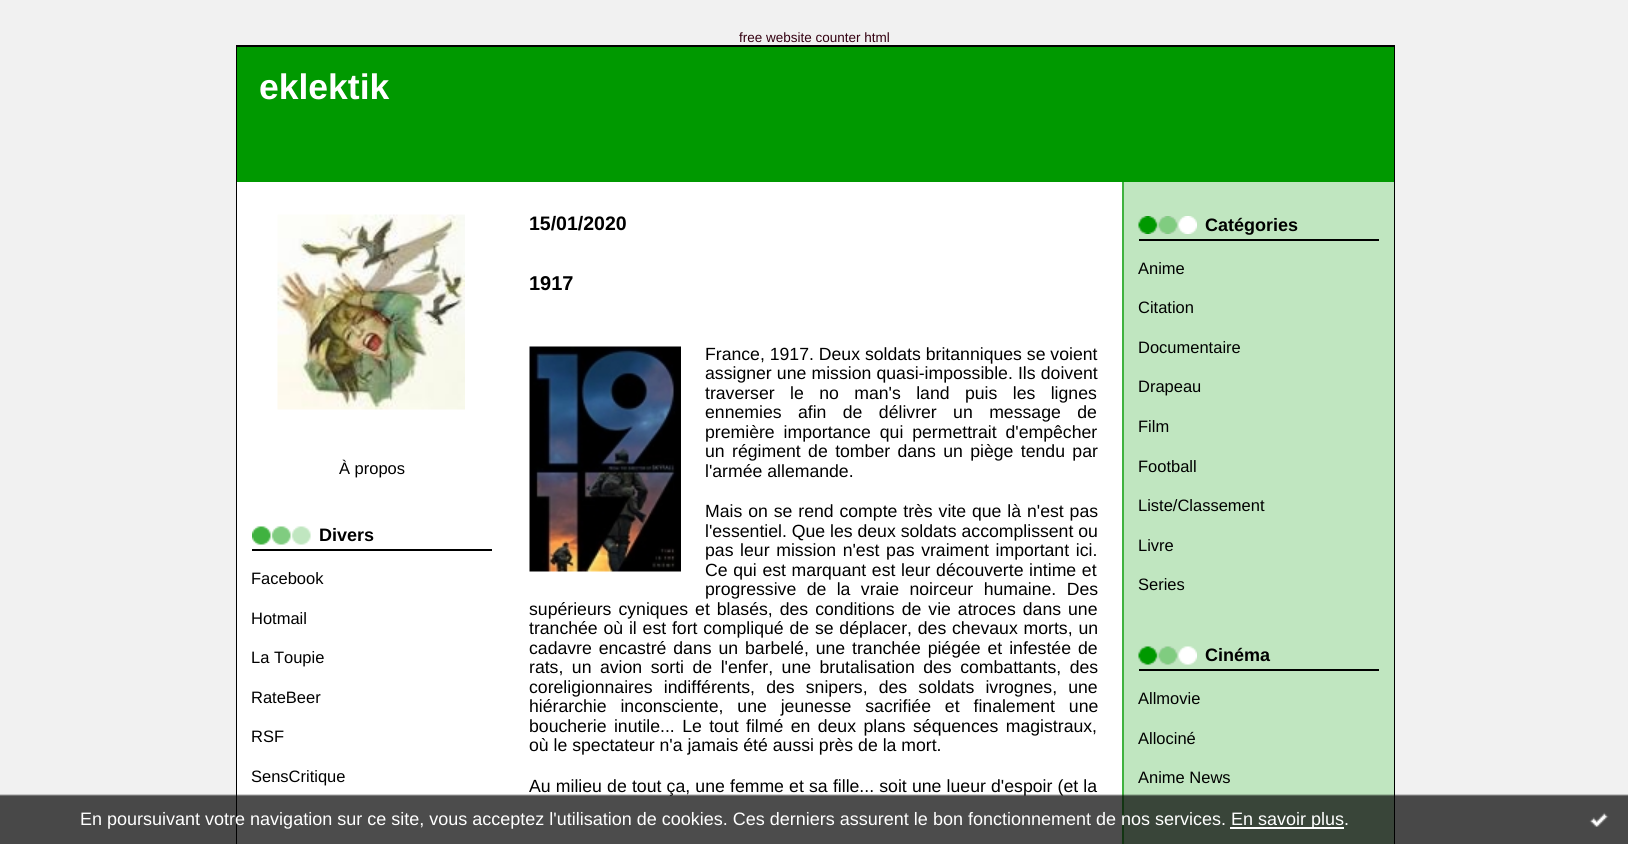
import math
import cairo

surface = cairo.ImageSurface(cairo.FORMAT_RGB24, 1628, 844)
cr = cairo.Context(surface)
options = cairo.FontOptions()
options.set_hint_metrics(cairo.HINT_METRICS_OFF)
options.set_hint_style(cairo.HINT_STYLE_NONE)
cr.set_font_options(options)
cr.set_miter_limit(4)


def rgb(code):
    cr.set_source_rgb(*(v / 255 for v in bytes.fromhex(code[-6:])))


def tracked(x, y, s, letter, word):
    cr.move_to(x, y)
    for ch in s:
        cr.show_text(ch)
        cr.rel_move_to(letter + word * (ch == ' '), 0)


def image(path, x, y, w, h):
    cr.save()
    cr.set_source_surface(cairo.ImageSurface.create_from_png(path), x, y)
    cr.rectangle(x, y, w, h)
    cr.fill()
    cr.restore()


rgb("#f1f1f1")
cr.paint()
rgb("#ffffff")
cr.rectangle(507, 182, 615, 662)
cr.fill()
cr.rectangle(237, 46, 1157, 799)
rgb("#000000")
cr.stroke()
rgb("#009900")
cr.rectangle(237, 47, 1157, 135)
cr.fill()
rgb("#ffffff")
cr.rectangle(237, 182, 270, 662)
cr.fill()
image("img/1.png", 277, 214, 188, 196)
image("img/2.png", 252, 526, 59, 19)
rgb("#000000")
cr.rectangle(252, 549, 240, 2)
cr.fill()
image("img/3.png", 529, 346, 152, 226)
rgb("#c0e6c0")
cr.rectangle(1124, 182, 270, 662)
cr.fill()
rgb("#40b240")
cr.rectangle(1122, 182, 2, 662)
cr.fill()
image("img/4.png", 1138, 216, 59, 18)
rgb("#000000")
cr.rectangle(1139, 239, 240, 2)
cr.fill()
image("img/5.png", 1138, 646, 59, 19)
cr.rectangle(1139, 669, 240, 2)
cr.fill()
cr.select_font_face("Liberation Sans")
cr.set_font_size(13.5)
rgb("#330010")
cr.move_to(739, 42)
cr.show_text("free website counter html")
cr.select_font_face("Liberation Sans", cairo.FONT_SLANT_NORMAL, cairo.FONT_WEIGHT_BOLD)
cr.set_font_size(35.5)
rgb("#ffffff")
cr.move_to(259, 99)
cr.show_text("eklektik")
cr.select_font_face("Liberation Sans")
cr.set_font_size(16.5)
rgb("#000000")
cr.move_to(339, 474)
cr.show_text("À propos")
cr.select_font_face("Liberation Sans", cairo.FONT_SLANT_NORMAL, cairo.FONT_WEIGHT_BOLD)
cr.set_font_size(18)
cr.move_to(319, 541)
cr.show_text("Divers")
cr.select_font_face("Liberation Sans")
cr.set_font_size(16.5)
for x, y, s in [
    (251, 584, "Facebook"),
    (251, 624, "Hotmail"),
    (251, 663, "La Toupie"),
    (251, 703, "RateBeer"),
    (251, 742, "RSF"),
    (251, 782, "SensCritique"),
]:
    cr.move_to(x, y)
    cr.show_text(s)
cr.select_font_face("Liberation Sans", cairo.FONT_SLANT_NORMAL, cairo.FONT_WEIGHT_BOLD)
cr.set_font_size(19.5)
cr.move_to(529, 230)
cr.show_text("15/01/2020")
cr.set_font_size(20)
cr.move_to(529, 290)
cr.show_text("1917")
cr.select_font_face("Liberation Sans")
cr.set_font_size(17.65)
cr.move_to(705, 360)
cr.show_text("France, 1917. Deux soldats britanniques se voient")
tracked(705, 379, "assigner une mission quasi-impossible. Ils doivent", 0, 0.25)
tracked(705, 399, "traverser le no man's land puis les lignes", 0, 10.5)
tracked(705, 418, "ennemies afin de délivrer un message de", 0, 11.5)
tracked(705, 438, "première importance qui permettrait d'empêcher", 0, 4)
tracked(705, 457, "un régiment de tomber dans un piège tendu par", 0, 2.5)
cr.move_to(705, 477)
cr.show_text("l'armée allemande.")
tracked(705, 517, "Mais on se rend compte très vite que là n'est pas", 0, 1)
cr.move_to(705, 537)
cr.show_text("l'essentiel. Que les deux soldats accomplissent ou")
tracked(705, 556, "pas leur mission n'est pas vraiment important ici.", 0, 1.75)
tracked(705, 576, "Ce qui est marquant est leur découverte intime et", 0, 0.75)
tracked(705, 595, "progressive de la vraie noirceur humaine. Des", 0, 5.5)
tracked(529, 615, "supérieurs cyniques et blasés, des conditions de vie atroces dans une", 0, 2.1)
tracked(529, 634, "tranchée où il est fort compliqué de se déplacer, des chevaux morts, un", 0, 0.9)
tracked(529, 654, "cadavre encastré dans un barbelé, une tranchée piégée et infestée de", 0, 2)
tracked(529, 673, "rats, un avion sorti de l'enfer, une brutalisation des combattants, des", 0, 3.6)
tracked(529, 693, "coreligionnaires indifférents, des snipers, des soldats ivrognes, une", 0, 6.25)
tracked(529, 712, "hiérarchie inconsciente, une jeunesse sacrifiée et finalement une", 0, 9)
tracked(529, 732, "boucherie inutile... Le tout filmé en deux plans séquences magistraux,", 0, 2.5)
cr.move_to(529, 751)
cr.show_text("où le spectateur n'a jamais été aussi près de la mort.")
tracked(529, 792, "Au milieu de tout ça, une femme et sa fille... soit une lueur d'espoir (et la", 0, 0.3)
cr.select_font_face("Liberation Sans", cairo.FONT_SLANT_NORMAL, cairo.FONT_WEIGHT_BOLD)
cr.set_font_size(18)
cr.move_to(1205, 231)
cr.show_text("Catégories")
cr.select_font_face("Liberation Sans")
cr.set_font_size(16.5)
for x, y, s in [
    (1138, 274, "Anime"),
    (1138, 313, "Citation"),
    (1138, 353, "Documentaire"),
    (1138, 392, "Drapeau"),
    (1138, 432, "Film"),
    (1138, 472, "Football"),
    (1138, 511, "Liste/Classement"),
    (1138, 551, "Livre"),
    (1138, 590, "Series"),
]:
    cr.move_to(x, y)
    cr.show_text(s)
cr.select_font_face("Liberation Sans", cairo.FONT_SLANT_NORMAL, cairo.FONT_WEIGHT_BOLD)
cr.set_font_size(18)
cr.move_to(1205, 661)
cr.show_text("Cinéma")
cr.select_font_face("Liberation Sans")
cr.set_font_size(16.5)
for x, y, s in [
    (1138, 704, "Allmovie"),
    (1138, 744, "Allociné"),
    (1138, 783, "Anime News"),
]:
    cr.move_to(x, y)
    cr.show_text(s)
image("img/6.png", 0, 794, 1628, 50)
cr.set_font_size(18)
rgb("#ffffff")
cr.move_to(80, 825)
cr.show_text("En poursuivant votre navigation sur ce site, vous acceptez l'utilisation de cookies. Ces derniers assurent le bon fonctionnement de nos services.")
cr.rectangle(1230, 827, 114, 2)
cr.fill()
cr.move_to(1231, 825)
cr.show_text("En savoir plus.")
image("img/7.png", 1589, 812, 20, 15)
surface.write_to_png("page.png")
